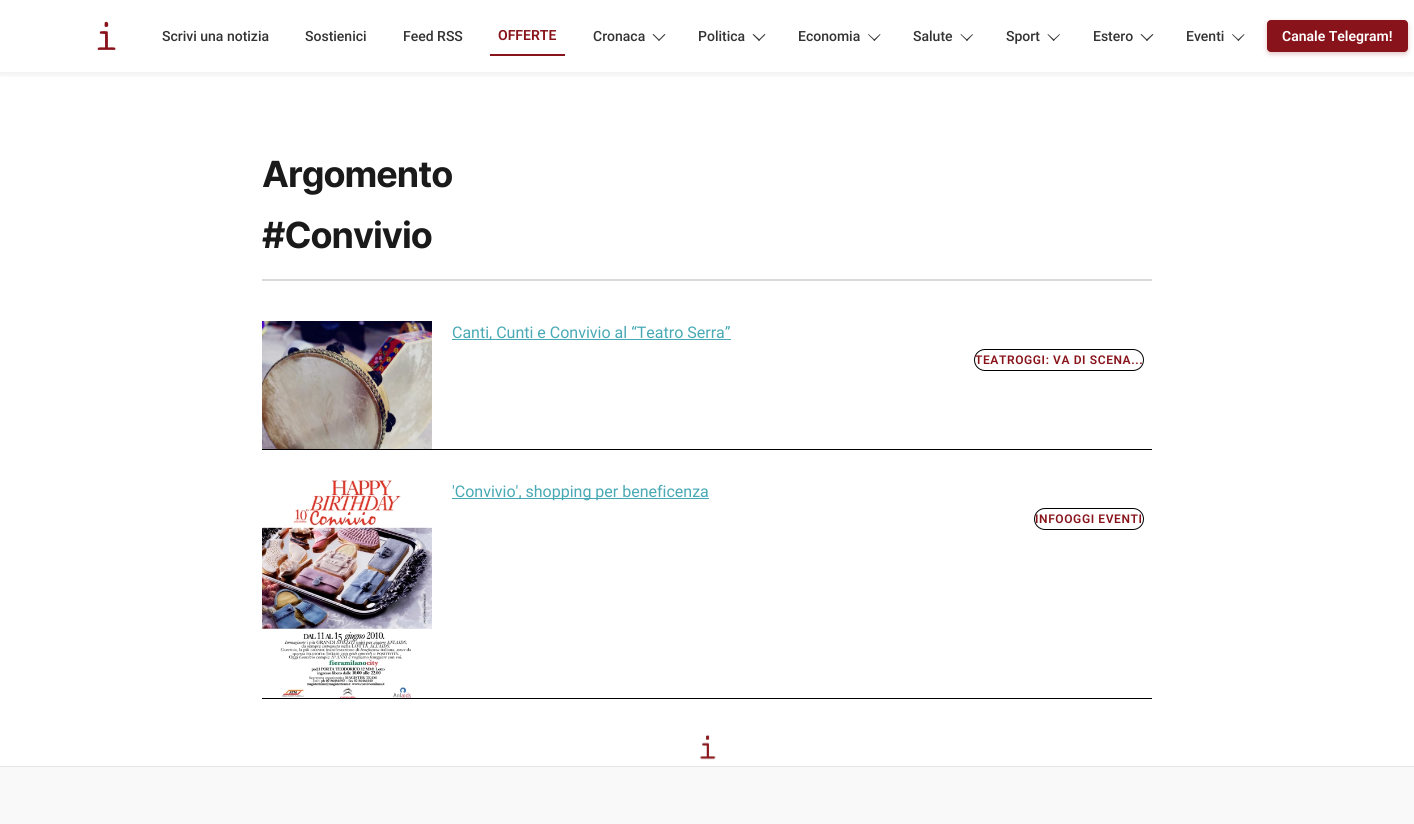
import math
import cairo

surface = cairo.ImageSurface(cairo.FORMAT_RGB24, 1414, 824)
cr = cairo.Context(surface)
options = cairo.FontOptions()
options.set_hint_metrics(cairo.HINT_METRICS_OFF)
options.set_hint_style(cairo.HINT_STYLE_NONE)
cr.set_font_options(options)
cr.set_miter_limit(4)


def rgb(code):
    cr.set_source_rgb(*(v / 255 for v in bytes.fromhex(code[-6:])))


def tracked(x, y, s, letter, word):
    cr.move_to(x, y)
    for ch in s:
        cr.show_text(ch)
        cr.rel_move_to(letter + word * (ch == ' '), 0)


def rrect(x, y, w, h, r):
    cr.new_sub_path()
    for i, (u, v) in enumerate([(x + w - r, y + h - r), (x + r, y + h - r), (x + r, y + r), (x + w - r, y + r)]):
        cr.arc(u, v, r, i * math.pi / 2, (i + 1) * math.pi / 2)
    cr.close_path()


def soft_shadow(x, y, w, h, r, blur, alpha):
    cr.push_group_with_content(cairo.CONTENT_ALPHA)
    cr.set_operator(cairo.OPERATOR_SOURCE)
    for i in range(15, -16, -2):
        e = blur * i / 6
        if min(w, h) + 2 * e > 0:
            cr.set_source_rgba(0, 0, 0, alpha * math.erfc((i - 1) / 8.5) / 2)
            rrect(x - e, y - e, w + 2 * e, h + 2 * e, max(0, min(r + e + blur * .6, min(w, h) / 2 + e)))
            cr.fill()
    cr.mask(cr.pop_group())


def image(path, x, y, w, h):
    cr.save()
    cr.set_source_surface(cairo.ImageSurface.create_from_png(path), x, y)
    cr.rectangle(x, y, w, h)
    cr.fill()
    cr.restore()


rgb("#ffffff")
cr.paint()
cr.save()
cr.rectangle(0, 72, 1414, 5)
cr.clip()
rgb("#000000")
soft_shadow(0, 2, 1414, 72, 0, 4, 0.08)
cr.restore()
image("img/1.png", 97, 21, 19, 29)
rgb("#88131a")
cr.rectangle(490, 54, 75, 2)
cr.fill()
rgb("#333333")
cr.new_path()
cr.move_to(664.5, 34)
cr.line_to(665.5, 34.5)
cr.line_to(659, 41)
cr.line_to(658.5, 40)
cr.close_path()
cr.fill()
cr.new_path()
cr.move_to(653.5, 34)
cr.line_to(659.5, 40)
cr.line_to(659, 41)
cr.line_to(652.5, 34.5)
cr.close_path()
cr.fill()
cr.new_path()
cr.move_to(764.5, 34)
cr.line_to(765.5, 34.5)
cr.line_to(759, 41)
cr.line_to(758.5, 40)
cr.close_path()
cr.fill()
cr.new_path()
cr.move_to(753.5, 34)
cr.line_to(760, 40)
cr.line_to(759, 41)
cr.line_to(752.5, 34.5)
cr.close_path()
cr.fill()
cr.new_path()
cr.move_to(880, 34)
cr.line_to(880.5, 34.5)
cr.line_to(874.5, 41)
cr.line_to(873.5, 40)
cr.close_path()
cr.fill()
cr.new_path()
cr.move_to(868.5, 34)
cr.line_to(875, 40)
cr.line_to(874.5, 41)
cr.line_to(868, 34.5)
cr.close_path()
cr.fill()
cr.new_path()
cr.move_to(972.5, 34)
cr.line_to(973, 34.5)
cr.line_to(967, 41)
cr.line_to(966, 40)
cr.close_path()
cr.fill()
cr.new_path()
cr.move_to(961, 34)
cr.line_to(967.5, 40)
cr.line_to(967, 41)
cr.line_to(960.5, 34.5)
cr.close_path()
cr.fill()
cr.new_path()
cr.move_to(1059.5, 34)
cr.line_to(1060, 34.5)
cr.line_to(1053.5, 41)
cr.line_to(1053, 40)
cr.close_path()
cr.fill()
cr.new_path()
cr.move_to(1048, 34)
cr.line_to(1054.5, 40)
cr.line_to(1053.5, 41)
cr.line_to(1047.5, 34.5)
cr.close_path()
cr.fill()
cr.new_path()
cr.move_to(1152.5, 34)
cr.line_to(1153.5, 34.5)
cr.line_to(1147, 41)
cr.line_to(1146, 40)
cr.close_path()
cr.fill()
cr.new_path()
cr.move_to(1141.5, 34)
cr.line_to(1147.5, 40)
cr.line_to(1147, 41)
cr.line_to(1140.5, 34.5)
cr.close_path()
cr.fill()
cr.new_path()
cr.move_to(1244, 34)
cr.line_to(1244.5, 34.5)
cr.line_to(1238.5, 41)
cr.line_to(1237.5, 40)
cr.close_path()
cr.fill()
cr.new_path()
cr.move_to(1232.5, 34)
cr.line_to(1239, 40)
cr.line_to(1238.5, 41)
cr.line_to(1232, 34.5)
cr.close_path()
cr.fill()
rgb("#88131a")
soft_shadow(1267, 22, 141, 32, 4, 2.5, 0.25)
rgb("#88131a")
rrect(1267, 20, 141, 32, 4)
cr.fill()
rgb("#dadada")
cr.rectangle(262, 279, 890, 2)
cr.fill()
rgb("#000000")
cr.rectangle(262, 449, 890, 1)
cr.fill()
image("img/2.png", 262, 321, 170, 128)
rgb("#48a9b5")
cr.rectangle(452, 339, 279, 1)
cr.fill()
rrect(974.5, 349.5, 169, 21, 10.5)
rgb("#000000")
cr.set_line_width(1)
cr.stroke()
cr.rectangle(262, 698, 890, 1)
cr.fill()
image("img/3.png", 262, 480, 170, 218)
rgb("#48a9b5")
cr.rectangle(452, 498, 257, 1)
cr.fill()
rrect(1034.5, 508.5, 109, 21, 10.5)
rgb("#000000")
cr.stroke()
image("img/4.png", 700, 734, 16, 26)
rgb("#f9f9f9")
cr.rectangle(0, 767, 1414, 57)
cr.fill()
rgb("#e5e5e5")
cr.rectangle(0, 766, 1414, 1)
cr.fill()
cr.select_font_face("Roboto Medium")
cr.set_font_size(14)
rgb("#333333")
for x, y, s in [
    (162, 41, "Scrivi una notizia"),
    (305, 41, "Sostienici"),
    (403, 41, "Feed RSS"),
]:
    cr.move_to(x, y)
    cr.show_text(s)
cr.select_font_face("Roboto SemiBold")
rgb("#88131a")
cr.move_to(498, 40)
cr.show_text("OFFERTE")
cr.select_font_face("Roboto Medium")
rgb("#333333")
for x, y, s in [
    (593, 41, "Cronaca"),
    (698, 41, "Politica"),
    (798, 41, "Economia"),
    (913, 41, "Salute"),
    (1006, 41, "Sport"),
    (1093, 41, "Estero"),
    (1186, 41, "Eventi"),
]:
    cr.move_to(x, y)
    cr.show_text(s)
cr.select_font_face("Roboto SemiBold")
rgb("#ffffff")
cr.move_to(1282, 41)
cr.show_text("Canale Telegram!")
cr.select_font_face("Inter", cairo.FONT_SLANT_NORMAL, cairo.FONT_WEIGHT_BOLD)
cr.set_font_size(36)
rgb("#1a1a1a")
tracked(262, 187, "Argomento", -1, 0)
tracked(262, 248, "#Convivio", -1, 0)
cr.select_font_face("Roboto")
cr.set_font_size(16)
rgb("#48a9b5")
cr.move_to(452, 338)
cr.show_text("Canti, Cunti e Convivio al “Teatro Serra”")
cr.select_font_face("Roboto SemiBold")
cr.set_font_size(12)
rgb("#88131a")
tracked(975, 364, "TEATROGGI: VA DI SCENA...", 0.6, 0)
cr.select_font_face("Roboto")
cr.set_font_size(16)
rgb("#48a9b5")
cr.move_to(452, 497)
cr.show_text("'Convivio', shopping per beneficenza")
cr.select_font_face("Roboto SemiBold")
cr.set_font_size(12)
rgb("#88131a")
tracked(1035, 523, "INFOOGGI EVENTI", 0.6, 0)
surface.write_to_png("page.png")
